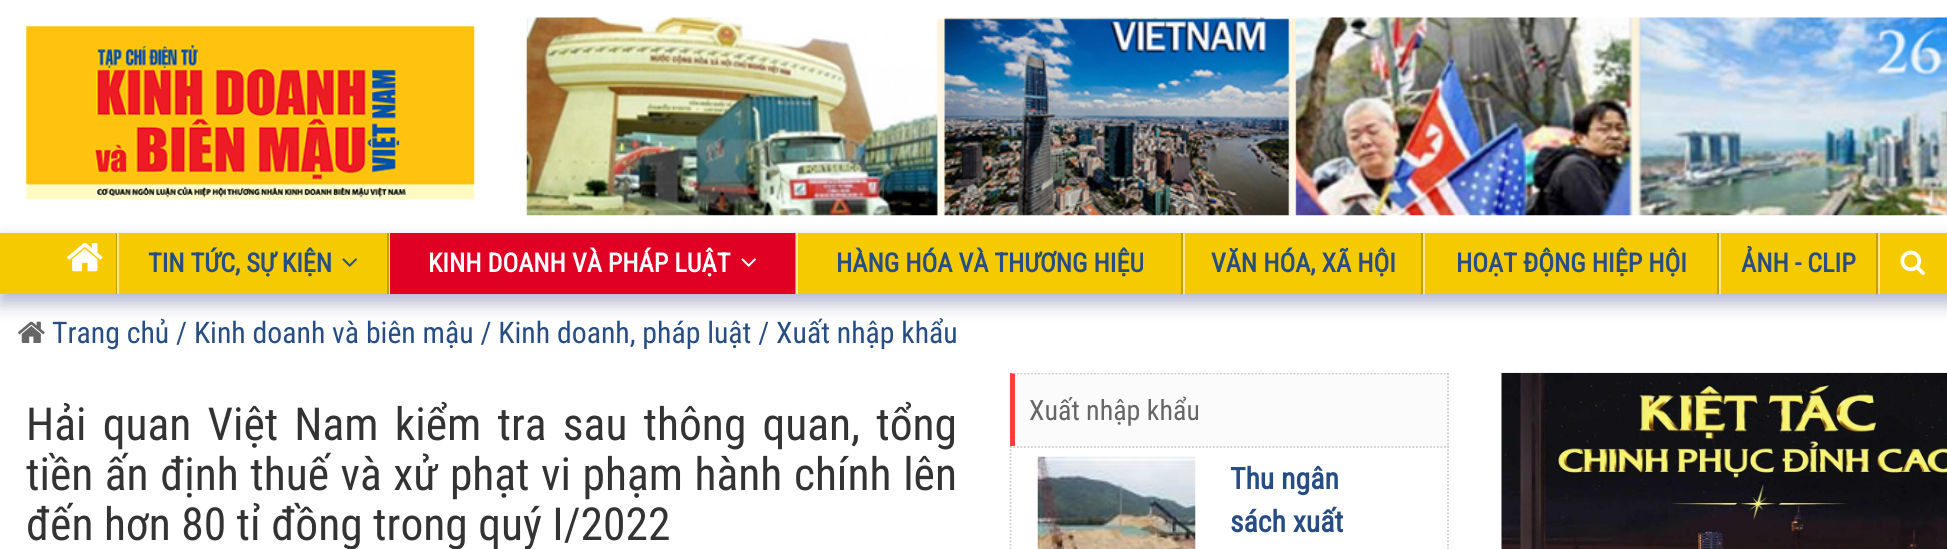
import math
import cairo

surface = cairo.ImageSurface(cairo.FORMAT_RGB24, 1947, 549)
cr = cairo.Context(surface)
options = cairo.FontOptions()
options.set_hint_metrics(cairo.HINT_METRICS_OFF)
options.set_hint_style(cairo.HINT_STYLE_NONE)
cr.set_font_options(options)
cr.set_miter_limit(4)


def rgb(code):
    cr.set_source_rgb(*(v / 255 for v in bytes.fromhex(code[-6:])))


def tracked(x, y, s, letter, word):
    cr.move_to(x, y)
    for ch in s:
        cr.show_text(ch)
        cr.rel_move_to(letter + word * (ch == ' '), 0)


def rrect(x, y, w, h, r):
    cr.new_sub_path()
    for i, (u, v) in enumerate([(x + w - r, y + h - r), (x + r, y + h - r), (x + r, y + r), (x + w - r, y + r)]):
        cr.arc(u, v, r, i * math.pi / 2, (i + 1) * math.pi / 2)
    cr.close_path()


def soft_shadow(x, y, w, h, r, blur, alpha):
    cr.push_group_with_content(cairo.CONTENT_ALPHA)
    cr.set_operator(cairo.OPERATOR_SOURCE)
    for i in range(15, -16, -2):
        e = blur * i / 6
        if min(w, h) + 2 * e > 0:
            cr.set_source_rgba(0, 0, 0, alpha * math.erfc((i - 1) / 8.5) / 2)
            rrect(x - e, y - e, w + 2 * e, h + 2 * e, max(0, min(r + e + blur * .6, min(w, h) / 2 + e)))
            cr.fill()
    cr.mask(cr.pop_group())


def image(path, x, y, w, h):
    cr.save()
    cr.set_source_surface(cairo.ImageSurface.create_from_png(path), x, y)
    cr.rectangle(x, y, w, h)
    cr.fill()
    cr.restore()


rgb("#ffffff")
cr.paint()
image("img/1.png", 26, 26, 449, 174)
image("img/2.png", 526, 17, 1421, 199)
image("img/7.png", 18, 321, 27, 22)
rgb("#000064")
soft_shadow(0, 242, 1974, 61, 0, 9, 0.3)
rgb("#f5ca00")
cr.rectangle(0, 233, 1947, 61)
cr.fill()
rgb("#c1a005")
cr.rectangle(116, 233, 1, 61)
cr.fill()
image("img/3.png", 67, 243, 36, 29)
cr.rectangle(387, 233, 2, 61)
cr.fill()
rgb("#fae790")
cr.rectangle(117, 233, 2, 61)
cr.fill()
image("img/4.png", 342, 258, 15, 9)
for x, y, w, h, color in [
    (795, 233, 1, 61, "#c1a005"),
    (389, 233, 1, 61, "#fae790"),
    (390, 233, 405, 61, "#df0024"),
]:
    rgb(color)
    cr.rectangle(x, y, w, h)
    cr.fill()
image("img/5.png", 741, 258, 15, 9)
for x, y, w, h, color in [
    (1181, 233, 2, 61, "#c1a005"),
    (796, 233, 2, 61, "#fae790"),
    (1421, 233, 2, 61, "#c1a005"),
    (1183, 233, 2, 61, "#fae790"),
    (1717, 233, 2, 61, "#c1a005"),
    (1423, 233, 2, 61, "#fae790"),
    (1876, 233, 2, 61, "#c1a005"),
    (1719, 233, 2, 61, "#fae790"),
    (1878, 233, 2, 61, "#fae790"),
]:
    rgb(color)
    cr.rectangle(x, y, w, h)
    cr.fill()
image("img/6.png", 1900, 250, 25, 25)
rgb("#fbfbfb")
cr.rectangle(1011, 373, 438, 73)
cr.fill()
cr.save()
cr.rectangle(0, 373, 1475, 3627)
cr.clip()
cr.new_path()
cr.move_to(1010, 373.5)
cr.line_to(1449, 373.5)
rgb("#cccccc")
cr.set_line_width(1.8)
cr.set_dash([1.75, 1.75])
cr.stroke()
cr.restore()
cr.new_path()
cr.move_to(1448, 373)
cr.line_to(1448, 446)
rgb("#cccccc")
cr.set_line_width(1.8)
cr.set_dash([1.75, 1.75])
cr.stroke()
rgb("#fd3c3d")
cr.new_path()
cr.move_to(1010, 446)
cr.line_to(1010, 373)
cr.line_to(1015, 374)
cr.line_to(1015, 446)
cr.close_path()
cr.fill()
cr.new_path()
cr.move_to(1010, 447)
cr.line_to(1449, 447)
rgb("#cccccc")
cr.stroke()
cr.new_path()
cr.move_to(1448, 446)
cr.line_to(1448, 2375)
cr.stroke()
cr.new_path()
cr.move_to(1010.5, 446)
cr.line_to(1010.5, 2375)
cr.stroke()
image("img/8.png", 1037, 456, 159, 93)
image("img/9.png", 1501, 372, 446, 177)
cr.select_font_face("Roboto Condensed", cairo.FONT_SLANT_NORMAL, cairo.FONT_WEIGHT_BOLD)
cr.set_font_size(26.25)
rgb("#274d83")
cr.move_to(148, 272)
cr.show_text("TIN TỨC, SỰ KIỆN")
rgb("#ffffff")
cr.move_to(428, 272)
cr.show_text("KINH DOANH VÀ PHÁP LUẬT")
rgb("#274d83")
for x, y, s in [
    (836, 272, "HÀNG HÓA VÀ THƯƠNG HIỆU"),
    (1211, 272, "VĂN HÓA, XÃ HỘI"),
    (1456, 272, "HOẠT ĐỘNG HIỆP HỘI"),
    (1741, 272, "ẢNH - CLIP"),
]:
    cr.move_to(x, y)
    cr.show_text(s)
cr.select_font_face("Roboto Condensed")
cr.set_font_size(29.75)
cr.move_to(52, 343)
cr.show_text("Trang chủ / Kinh doanh và biên mậu / Kinh doanh, pháp luật / Xuất nhập khẩu")
cr.set_font_size(45.5)
rgb("#333333")
tracked(26, 440, "Hải quan Việt Nam kiểm tra sau thông quan, tổng", 0, 5.75)
tracked(26, 490, "tiền ấn định thuế và xử phạt vi phạm hành chính lên", 0, 1.1)
cr.move_to(26, 540)
cr.show_text("đến hơn 80 tỉ đồng trong quý I/2022")
cr.set_font_size(28)
rgb("#666666")
cr.move_to(1029, 420)
cr.show_text("Xuất nhập khẩu")
cr.select_font_face("Roboto Condensed", cairo.FONT_SLANT_NORMAL, cairo.FONT_WEIGHT_BOLD)
cr.set_font_size(29.75)
rgb("#274d83")
cr.move_to(1230, 489)
cr.show_text("Thu ngân")
cr.move_to(1230, 532)
cr.show_text("sách xuất")
surface.write_to_png("page.png")
